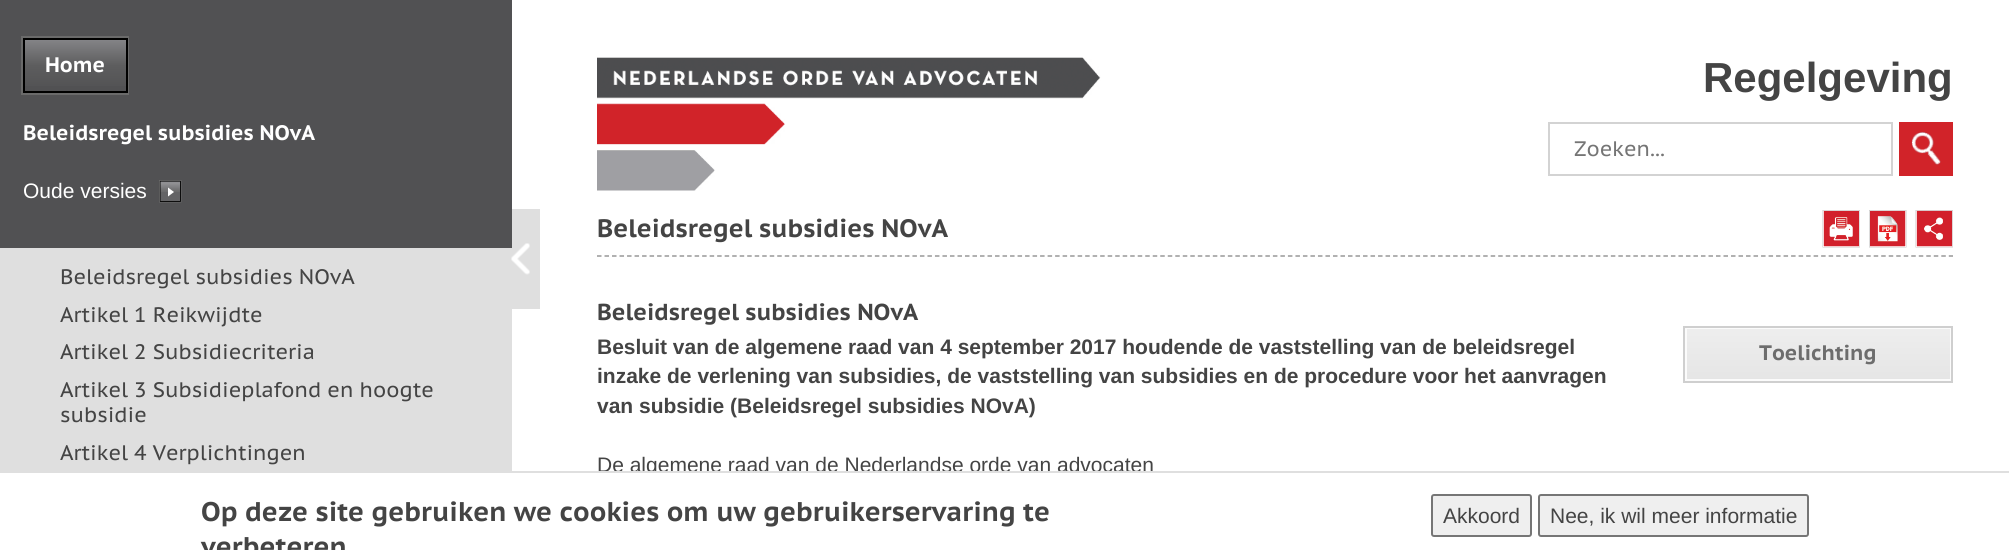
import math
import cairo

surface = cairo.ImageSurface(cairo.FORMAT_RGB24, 2009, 550)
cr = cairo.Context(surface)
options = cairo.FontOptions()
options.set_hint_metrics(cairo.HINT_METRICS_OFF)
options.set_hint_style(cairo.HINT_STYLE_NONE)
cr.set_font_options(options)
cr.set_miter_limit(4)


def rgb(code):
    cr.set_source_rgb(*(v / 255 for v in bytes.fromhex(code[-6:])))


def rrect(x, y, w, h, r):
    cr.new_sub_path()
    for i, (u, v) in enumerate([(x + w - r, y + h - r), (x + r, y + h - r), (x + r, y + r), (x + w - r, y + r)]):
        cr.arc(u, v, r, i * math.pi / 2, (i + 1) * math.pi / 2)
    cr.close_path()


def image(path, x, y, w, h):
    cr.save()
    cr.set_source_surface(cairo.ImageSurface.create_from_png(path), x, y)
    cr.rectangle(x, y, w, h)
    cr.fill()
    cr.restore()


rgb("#ffffff")
cr.paint()
rgb("#dfdfdf")
cr.rectangle(0, 248, 512, 223)
cr.fill()
rgb("#515153")
cr.rectangle(0, 0, 512, 248)
cr.fill()
cr.rectangle(22, 37, 106, 57)
rgb("#6a6a6a")
cr.stroke()
gradient = cairo.LinearGradient(75, 39, 75, 92)
gradient.add_color_stop_rgba(0, 0.522, 0.522, 0.533, 1)
gradient.add_color_stop_rgba(0.5, 0.365, 0.365, 0.369, 1)
gradient.add_color_stop_rgba(1, 0.318, 0.318, 0.325, 1)
cr.set_source(gradient)
cr.rectangle(25, 40, 101, 46)
cr.fill()
cr.rectangle(24, 39, 103, 53)
rgb("#000000")
cr.stroke()
image("img/1.png", 159, 180, 23, 23)
rgb("#ffffff")
cr.new_path()
cr.move_to(168, 196.5)
cr.line_to(168, 187.5)
cr.line_to(174, 192)
cr.close_path()
cr.fill()
rgb("#dfdfdf")
cr.rectangle(512, 209, 28, 100)
cr.fill()
image("img/2.png", 511, 243, 19, 32)
cr.new_path()
cr.move_to(597, 256)
cr.line_to(1953, 256)
rgb("#979797")
cr.set_line_width(1.5)
cr.set_dash([4.5, 3.01])
cr.stroke()
image("img/3.png", 597, 57, 504, 134)
cr.rectangle(1549, 123, 343, 52)
rgb("#d3d3d3")
cr.set_line_width(2)
cr.set_dash([])
cr.stroke()
rgb("#d12329")
cr.rectangle(1899, 122, 54, 54)
cr.fill()
image("img/4.png", 1911, 132, 30, 33)
image("img/5.png", 1822, 210, 38, 38)
image("img/6.png", 1869, 210, 38, 38)
image("img/7.png", 1915, 210, 38, 38)
gradient = cairo.LinearGradient(1818, 327, 1818, 381)
gradient.add_color_stop_rgba(0, 0.933, 0.933, 0.933, 1)
gradient.add_color_stop_rgba(1, 0.898, 0.898, 0.898, 1)
cr.set_source(gradient)
cr.rectangle(1687, 329, 263, 50)
cr.fill()
cr.rectangle(1686, 328, 265, 52)
rgb("#fbfbfb")
cr.stroke()
cr.rectangle(1684, 327, 268, 55)
rgb("#cfcfcf")
cr.stroke()
rgb("#efefef")
rrect(1432, 495, 99, 41, 2)
cr.fill_preserve()
rgb("#767676")
cr.stroke()
rgb("#efefef")
rrect(1539, 495, 269, 41, 2)
cr.fill_preserve()
rgb("#767676")
cr.stroke()
cr.select_font_face("PT Sans Caption", cairo.FONT_SLANT_NORMAL, cairo.FONT_WEIGHT_BOLD)
cr.set_font_size(21)
rgb("#ffffff")
cr.move_to(45, 72)
cr.show_text("Home")
cr.move_to(23, 140)
cr.show_text("Beleidsregel subsidies NOvA")
cr.select_font_face("Liberation Sans")
cr.move_to(23, 198)
cr.show_text("Oude versies")
cr.select_font_face("PT Sans Caption")
rgb("#444444")
for x, y, s in [
    (60, 284, "Beleidsregel subsidies NOvA"),
    (60, 322, "Artikel 1 Reikwijdte"),
    (60, 359, "Artikel 2 Subsidiecriteria"),
    (60, 397, "Artikel 3 Subsidieplafond en hoogte"),
    (60, 422, "subsidie"),
    (60, 460, "Artikel 4 Verplichtingen"),
]:
    cr.move_to(x, y)
    cr.show_text(s)
cr.select_font_face("Liberation Sans", cairo.FONT_SLANT_NORMAL, cairo.FONT_WEIGHT_BOLD)
cr.set_font_size(42)
cr.move_to(1703, 92)
cr.show_text("Regelgeving")
cr.select_font_face("PT Sans Caption")
cr.set_font_size(21)
rgb("#757575")
cr.move_to(1574, 156)
cr.show_text("Zoeken...")
cr.select_font_face("PT Sans Caption", cairo.FONT_SLANT_NORMAL, cairo.FONT_WEIGHT_BOLD)
cr.set_font_size(25.25)
rgb("#444444")
cr.move_to(597, 237)
cr.show_text("Beleidsregel subsidies NOvA")
cr.set_font_size(23.1)
cr.move_to(597, 320)
cr.show_text("Beleidsregel subsidies NOvA")
cr.select_font_face("Liberation Sans", cairo.FONT_SLANT_NORMAL, cairo.FONT_WEIGHT_BOLD)
cr.set_font_size(21)
for x, y, s in [
    (597, 354, "Besluit van de algemene raad van 4 september 2017 houdende de vaststelling van de beleidsregel"),
    (597, 383, "inzake de verlening van subsidies, de vaststelling van subsidies en de procedure voor het aanvragen"),
    (597, 413, "van subsidie (Beleidsregel subsidies NOvA)"),
]:
    cr.move_to(x, y)
    cr.show_text(s)
cr.select_font_face("Liberation Sans")
cr.move_to(597, 472)
cr.show_text("De algemene raad van de Nederlandse orde van advocaten")
cr.select_font_face("PT Sans Caption", cairo.FONT_SLANT_NORMAL, cairo.FONT_WEIGHT_BOLD)
rgb("#6d6d6d")
cr.move_to(1759, 360)
cr.show_text("Toelichting")
rgb("#ffffff")
cr.rectangle(647, 473, 10, 4)
cr.fill()
rgb("#dfdfdf")
cr.rectangle(0, 471, 2009, 2)
cr.fill()
cr.set_font_size(27)
rgb("#444444")
cr.move_to(201, 521)
cr.show_text("Op deze site gebruiken we cookies om uw gebruikerservaring te")
cr.move_to(201, 556)
cr.show_text("verbeteren")
cr.select_font_face("Liberation Sans")
cr.set_font_size(21)
cr.move_to(1443, 523)
cr.show_text("Akkoord")
cr.move_to(1550, 523)
cr.show_text("Nee, ik wil meer informatie")
surface.write_to_png("page.png")
